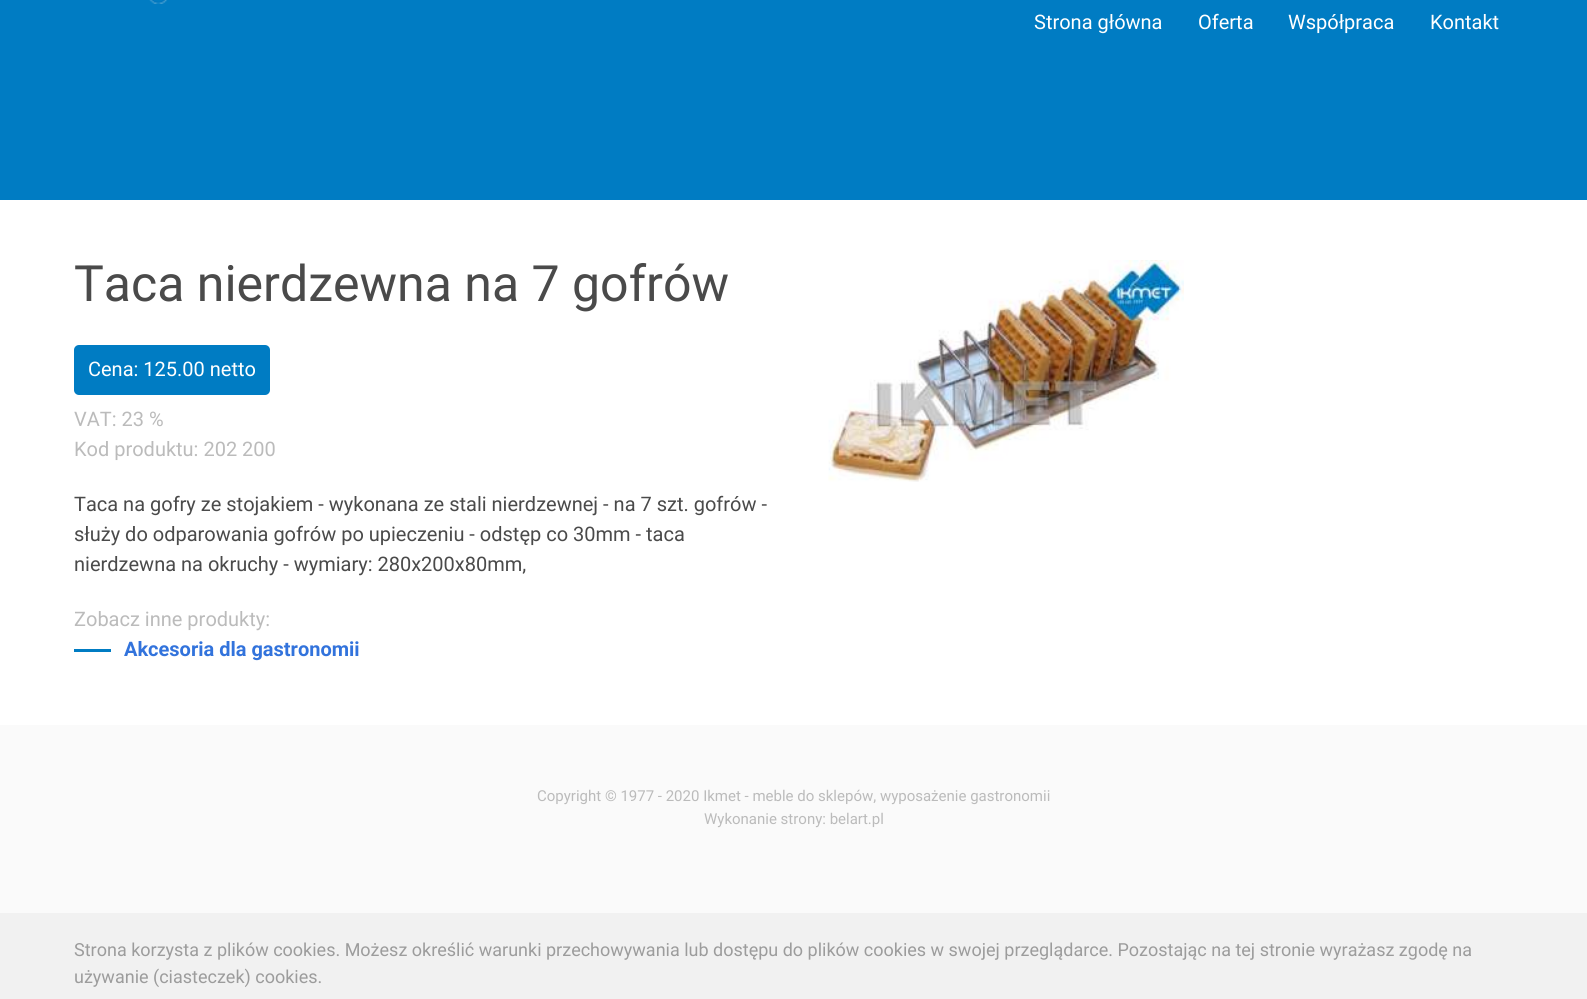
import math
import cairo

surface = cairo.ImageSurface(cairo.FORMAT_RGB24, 1587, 999)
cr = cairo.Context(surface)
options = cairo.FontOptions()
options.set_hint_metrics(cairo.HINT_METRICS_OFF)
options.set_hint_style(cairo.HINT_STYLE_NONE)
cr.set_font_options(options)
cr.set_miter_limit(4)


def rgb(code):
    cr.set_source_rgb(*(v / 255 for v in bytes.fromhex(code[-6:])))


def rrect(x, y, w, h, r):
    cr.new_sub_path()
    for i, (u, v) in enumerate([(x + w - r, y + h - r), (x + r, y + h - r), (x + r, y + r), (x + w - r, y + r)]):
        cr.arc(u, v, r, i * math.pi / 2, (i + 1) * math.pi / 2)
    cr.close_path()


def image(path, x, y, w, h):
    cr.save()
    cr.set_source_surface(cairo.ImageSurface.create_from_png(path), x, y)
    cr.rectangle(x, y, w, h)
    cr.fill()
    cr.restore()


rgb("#ffffff")
cr.paint()
rgb("#007cc3")
cr.rectangle(0, 0, 1587, 200)
cr.fill()
image("img/1.png", 149, 0, 18, 4)
rrect(74, 345, 196, 50, 5)
cr.fill()
cr.rectangle(74, 649, 37, 3)
cr.fill()
image("img/2.png", 828, 260, 356, 222)
rgb("#fafafa")
cr.rectangle(0, 725, 1587, 188)
cr.fill()
rgb("#f1f1f1")
cr.rectangle(0, 913, 1587, 86)
cr.fill()
cr.select_font_face("Roboto")
cr.set_font_size(20)
rgb("#ffffff")
for x, y, s in [
    (1034, 29, "Strona główna"),
    (1198, 29, "Oferta"),
    (1288, 29, "Współpraca"),
    (1430, 29, "Kontakt"),
]:
    cr.move_to(x, y)
    cr.show_text(s)
cr.set_font_size(50)
rgb("#4a4a4a")
cr.move_to(74, 301)
cr.show_text("Taca nierdzewna na 7 gofrów")
cr.set_font_size(20)
rgb("#ffffff")
cr.move_to(88, 376)
cr.show_text("Cena: 125.00 netto")
rgb("#bbbbbb")
cr.move_to(74, 426)
cr.show_text("VAT: 23 %")
cr.move_to(74, 456)
cr.show_text("Kod produktu: 202 200")
rgb("#4a4a4a")
for x, y, s in [
    (74, 511, "Taca na gofry ze stojakiem - wykonana ze stali nierdzewnej - na 7 szt. gofrów -"),
    (74, 541, "służy do odparowania gofrów po upieczeniu - odstęp co 30mm - taca"),
    (74, 571, "nierdzewna na okruchy - wymiary: 280x200x80mm,"),
]:
    cr.move_to(x, y)
    cr.show_text(s)
rgb("#bbbbbb")
cr.move_to(74, 626)
cr.show_text("Zobacz inne produkty:")
cr.select_font_face("Roboto", cairo.FONT_SLANT_NORMAL, cairo.FONT_WEIGHT_BOLD)
rgb("#3273dc")
cr.move_to(124, 656)
cr.show_text("Akcesoria dla gastronomii")
cr.select_font_face("Roboto")
cr.set_font_size(15)
rgb("#bbbbbb")
cr.move_to(537, 801)
cr.show_text("Copyright © 1977 - 2020 Ikmet - meble do sklepów, wyposażenie gastronomii")
cr.move_to(704, 824)
cr.show_text("Wykonanie strony: belart.pl")
cr.set_font_size(18)
rgb("#9c9c9c")
cr.move_to(74, 956)
cr.show_text("Strona korzysta z plików cookies. Możesz określić warunki przechowywania lub dostępu do plików cookies w swojej przeglądarce. Pozostając na tej stronie wyrażasz zgodę na")
cr.move_to(74, 983)
cr.show_text("używanie (ciasteczek) cookies.")
surface.write_to_png("page.png")
